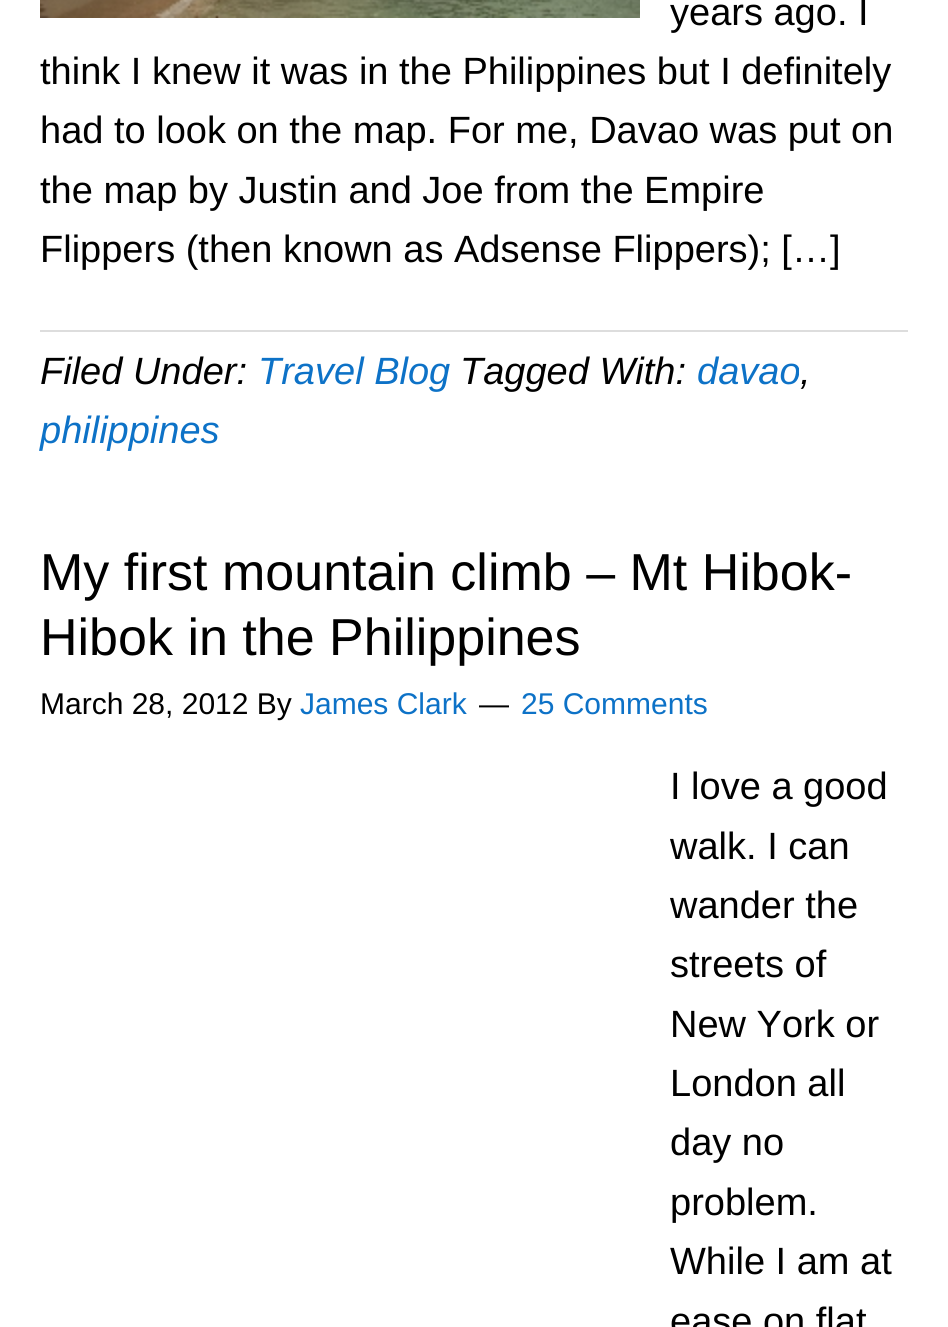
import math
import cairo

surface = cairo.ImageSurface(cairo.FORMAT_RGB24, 948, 1327)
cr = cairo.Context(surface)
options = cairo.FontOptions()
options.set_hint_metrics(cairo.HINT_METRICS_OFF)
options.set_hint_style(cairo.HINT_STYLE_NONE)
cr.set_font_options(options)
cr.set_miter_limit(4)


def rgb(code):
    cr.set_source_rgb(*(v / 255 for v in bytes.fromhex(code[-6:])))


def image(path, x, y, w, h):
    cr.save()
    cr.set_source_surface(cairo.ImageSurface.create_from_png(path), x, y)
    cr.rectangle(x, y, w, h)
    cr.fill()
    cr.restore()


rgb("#ffffff")
cr.paint()
image("img/1.png", 40, 0, 600, 18)
rgb("#dddddd")
cr.rectangle(40, 330, 868, 2)
cr.fill()
cr.select_font_face("Liberation Sans")
cr.set_font_size(38)
rgb("#000000")
for x, y, s in [
    (670, 25, "years ago. I"),
    (40, 84, "think I knew it was in the Philippines but I definitely"),
    (40, 143, "had to look on the map. For me, Davao was put on"),
    (40, 203, "the map by Justin and Joe from the Empire"),
    (40, 262, "Flippers (then known as Adsense Flippers); […]"),
]:
    cr.move_to(x, y)
    cr.show_text(s)
cr.select_font_face("Liberation Sans", cairo.FONT_SLANT_ITALIC)
cr.move_to(40, 384)
cr.show_text("Filed Under:")
rgb("#0d72c7")
cr.move_to(258, 384)
cr.show_text("Travel Blog")
rgb("#000000")
cr.move_to(460, 384)
cr.show_text("Tagged With:")
rgb("#0d72c7")
cr.move_to(697, 384)
cr.show_text("davao")
rgb("#000000")
cr.move_to(800, 384)
cr.show_text(",")
rgb("#0d72c7")
cr.move_to(40, 443)
cr.show_text("philippines")
cr.select_font_face("Liberation Sans")
cr.set_font_size(52)
rgb("#000000")
cr.move_to(40, 590)
cr.show_text("My first mountain climb – Mt Hibok-")
cr.move_to(40, 655)
cr.show_text("Hibok in the Philippines")
cr.set_font_size(30)
cr.move_to(40, 714)
cr.show_text("March 28, 2012 By")
rgb("#0d72c7")
cr.move_to(300, 714)
cr.show_text("James Clark")
rgb("#000000")
cr.move_to(479, 714)
cr.show_text("—")
rgb("#0d72c7")
cr.move_to(521, 714)
cr.show_text("25 Comments")
cr.set_font_size(38)
rgb("#000000")
for x, y, s in [
    (670, 799, "I love a good"),
    (670, 859, "walk. I can"),
    (670, 918, "wander the"),
    (670, 977, "streets of"),
    (670, 1037, "New York or"),
    (670, 1096, "London all"),
    (670, 1155, "day no"),
    (670, 1215, "problem."),
    (670, 1274, "While I am at"),
    (670, 1334, "ease on flat"),
]:
    cr.move_to(x, y)
    cr.show_text(s)
surface.write_to_png("page.png")
